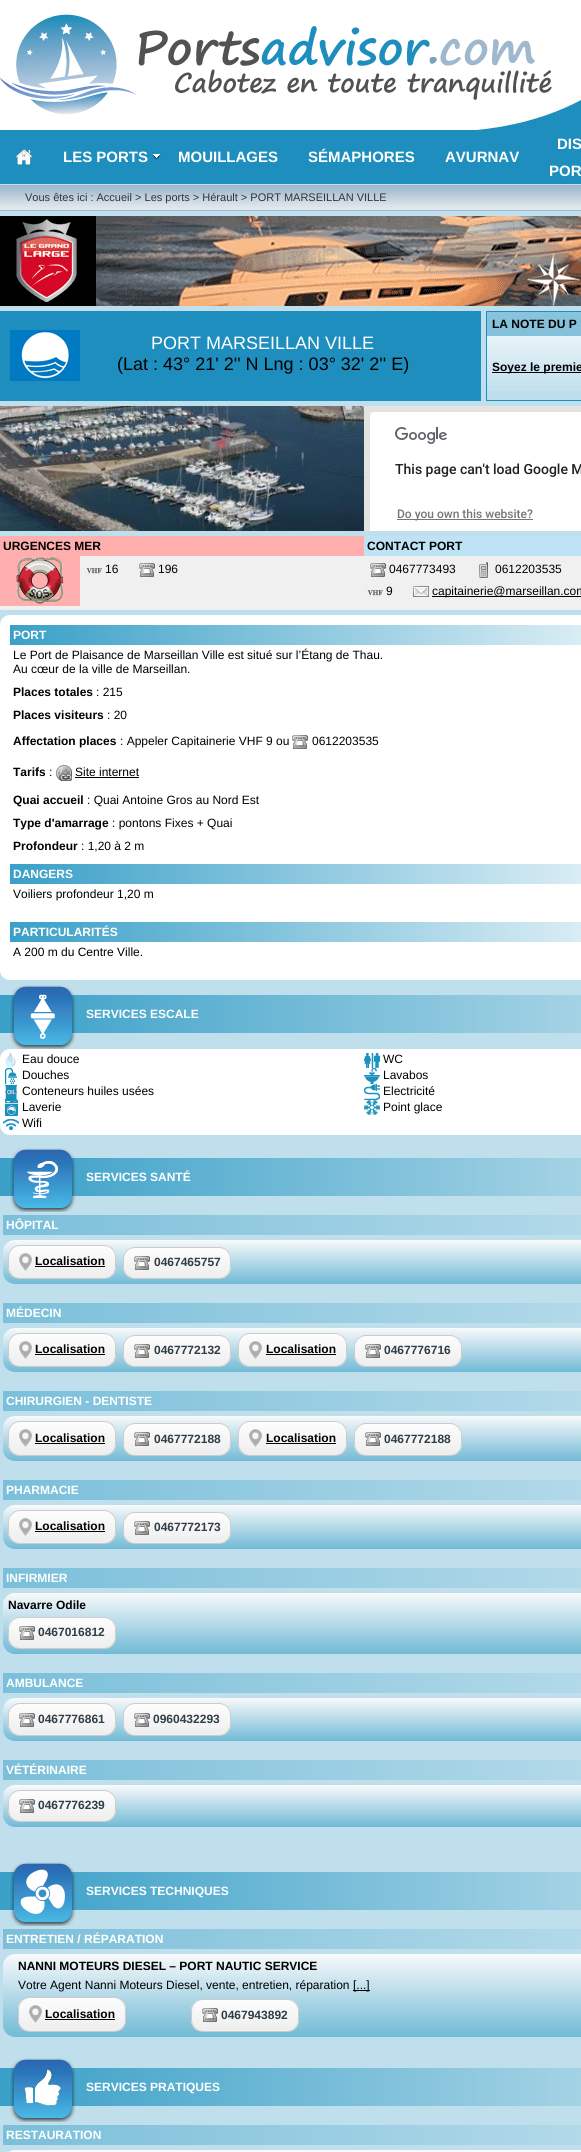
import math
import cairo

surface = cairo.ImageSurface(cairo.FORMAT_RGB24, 581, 2152)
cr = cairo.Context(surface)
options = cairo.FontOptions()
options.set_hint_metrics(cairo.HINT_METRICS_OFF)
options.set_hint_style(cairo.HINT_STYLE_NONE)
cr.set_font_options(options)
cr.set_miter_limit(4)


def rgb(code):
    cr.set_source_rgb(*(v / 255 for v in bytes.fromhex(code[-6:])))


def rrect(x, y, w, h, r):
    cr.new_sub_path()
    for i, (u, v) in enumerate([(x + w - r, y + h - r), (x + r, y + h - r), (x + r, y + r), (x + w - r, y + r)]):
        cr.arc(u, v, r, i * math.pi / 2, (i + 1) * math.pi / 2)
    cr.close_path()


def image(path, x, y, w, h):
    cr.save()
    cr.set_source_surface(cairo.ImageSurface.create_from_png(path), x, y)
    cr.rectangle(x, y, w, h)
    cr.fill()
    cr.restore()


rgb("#bfdfec")
cr.paint()
image("img/1.png", 0, 0, 581, 130)
image("img/2.png", 472, 96, 109, 34)
image("img/3.png", 0, 14, 552, 101)
rgb("#1d8ebe")
cr.rectangle(0, 130, 581, 54)
cr.fill()
image("img/4.png", 15, 149, 18, 16)
image("img/5.png", 153, 154, 8, 6)
image("img/6.png", 0, 185, 581, 25)
rgb("#a0b8ce")
cr.rectangle(0, 210, 581, 1)
cr.fill()
image("img/7.png", 0, 216, 581, 90)
rgb("#1e8ebe")
cr.rectangle(0, 311, 481, 90)
cr.fill()
image("img/8.png", 10, 330, 70, 51)
rgb("#bcddec")
cr.rectangle(487, 391, 94, 9)
cr.fill()
image("img/9.png", 487, 312, 94, 79)
cr.rectangle(486.5, 311.5, 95, 89)
rgb("#1e8ebe")
cr.set_line_width(1)
cr.stroke()
cr.set_source_rgba(0.118, 0.553, 0.741, 0.5)
cr.rectangle(487, 312, 94, 24)
cr.fill()
rgb("#000000")
cr.rectangle(492, 372, 89, 1)
cr.fill()
image("img/10.png", 0, 406, 364, 125)
rgb("#e5e3df")
cr.rectangle(364, 406, 217, 125)
cr.fill()
rgb("#ffffff")
cr.new_path()
cr.move_to(374, 411)
cr.line_to(581, 411)
cr.curve_to(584, 411, 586, 413, 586, 416)
cr.line_to(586, 531)
cr.line_to(369, 531)
cr.line_to(369, 416)
cr.curve_to(369, 413, 371, 411, 374, 411)
cr.close_path()
cr.fill()
for x, y, w, h, color in [
    (0, 556, 581, 54, "#f0f0f0"),
    (0, 536, 364, 20, "#ffaeae"),
    (0, 556, 80, 50, "#ffaeae"),
]:
    rgb(color)
    cr.rectangle(x, y, w, h)
    cr.fill()
image("img/12.png", 16, 557, 48, 47)
image("img/13.png", 86, 568, 16, 6)
image("img/14.png", 139, 563, 16, 14)
rgb("#bde3f4")
cr.rectangle(364, 536, 217, 20)
cr.fill()
image("img/14.png", 370, 563, 16, 14)
image("img/15.png", 479, 562, 9, 16)
image("img/13.png", 367, 590, 16, 6)
image("img/16.png", 413, 586, 16, 11)
rgb("#000000")
cr.rectangle(432, 596, 149, 1)
cr.fill()
rgb("#ffffff")
rrect(0, 615, 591, 365, 10)
cr.fill()
gradient = cairo.LinearGradient(10, 635, 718, 635)
gradient.add_color_stop_rgba(0, 0.227, 0.627, 0.784, 1)
gradient.add_color_stop_rgba(1, 1, 1, 1, 1)
cr.set_source(gradient)
cr.rectangle(10, 625, 571, 20)
cr.fill()
image("img/17.png", 292, 735, 16, 14)
image("img/18.png", 56, 765, 16, 16)
rgb("#000000")
cr.rectangle(75, 777, 64, 1)
cr.fill()
gradient = cairo.LinearGradient(10, 874, 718, 874)
gradient.add_color_stop_rgba(0, 0.227, 0.627, 0.784, 1)
gradient.add_color_stop_rgba(1, 1, 1, 1, 1)
cr.set_source(gradient)
cr.rectangle(10, 864, 571, 20)
cr.fill()
gradient = cairo.LinearGradient(10, 932, 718, 932)
gradient.add_color_stop_rgba(0, 0.227, 0.627, 0.784, 1)
gradient.add_color_stop_rgba(1, 1, 1, 1, 1)
cr.set_source(gradient)
cr.rectangle(10, 922, 571, 20)
cr.fill()
gradient = cairo.LinearGradient(0, 1014, 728, 1014)
gradient.add_color_stop_rgba(0, 0.227, 0.627, 0.784, 1)
gradient.add_color_stop_rgba(1, 0.749, 0.875, 0.925, 1)
cr.set_source(gradient)
cr.rectangle(0, 995, 581, 38)
cr.fill()
image("img/19.png", 10, 985, 66, 64)
rgb("#ffffff")
rrect(0, 1049, 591, 86, 10)
cr.fill()
image("img/20.png", 5, 1052, 11, 16)
image("img/21.png", 364, 1053, 16, 15)
image("img/22.png", 5, 1068, 12, 16)
image("img/23.png", 364, 1068, 16, 16)
image("img/24.png", 5, 1085, 12, 15)
image("img/25.png", 364, 1084, 16, 16)
image("img/26.png", 5, 1100, 13, 16)
image("img/27.png", 364, 1100, 16, 15)
image("img/28.png", 3, 1119, 16, 11)
gradient = cairo.LinearGradient(0, 1177, 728, 1177)
gradient.add_color_stop_rgba(0, 0.227, 0.627, 0.784, 1)
gradient.add_color_stop_rgba(1, 0.749, 0.875, 0.925, 1)
cr.set_source(gradient)
cr.rectangle(0, 1158, 581, 38)
cr.fill()
image("img/29.png", 10, 1148, 66, 64)
gradient = cairo.LinearGradient(3, 1225, 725, 1225)
gradient.add_color_stop_rgba(0, 0.482, 0.749, 0.855, 1)
gradient.add_color_stop_rgba(1, 0.749, 0.875, 0.925, 1)
cr.set_source(gradient)
cr.rectangle(3, 1215, 578, 20)
cr.fill()
gradient = cairo.LinearGradient(364, 1240, 364, 1284)
gradient.add_color_stop_rgba(0, 0.976, 0.98, 0.984, 1)
gradient.add_color_stop_rgba(1, 0.443, 0.729, 0.839, 1)
cr.set_source(gradient)
rrect(3, 1240, 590, 44, 12)
cr.fill()
cr.save()
rrect(8, 1245, 108, 34, 12)
cr.clip()
gradient = cairo.LinearGradient(62, 1246, 62, 1278)
gradient.add_color_stop_rgba(0, 0.992, 0.992, 0.992, 1)
gradient.add_color_stop_rgba(1, 0.933, 0.933, 0.933, 1)
cr.set_source(gradient)
cr.rectangle(8, 1246, 108, 32)
cr.fill()
cr.restore()
rrect(8.5, 1245.5, 107, 33, 11.5)
rgb("#cccccc")
cr.stroke()
image("img/30.png", 19, 1253, 13, 18)
rgb("#000000")
cr.rectangle(35, 1266, 70, 1)
cr.fill()
cr.save()
rrect(123, 1247, 108, 32, 12)
cr.clip()
gradient = cairo.LinearGradient(177, 1248, 177, 1278)
gradient.add_color_stop_rgba(0, 0.992, 0.992, 0.992, 1)
gradient.add_color_stop_rgba(1, 0.933, 0.933, 0.933, 1)
cr.set_source(gradient)
cr.rectangle(123, 1248, 108, 30)
cr.fill()
cr.restore()
rrect(123.5, 1247.5, 107, 31, 11.5)
rgb("#cccccc")
cr.stroke()
image("img/31.png", 134, 1256, 16, 14)
gradient = cairo.LinearGradient(3, 1313, 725, 1313)
gradient.add_color_stop_rgba(0, 0.482, 0.749, 0.855, 1)
gradient.add_color_stop_rgba(1, 0.749, 0.875, 0.925, 1)
cr.set_source(gradient)
cr.rectangle(3, 1303, 578, 20)
cr.fill()
gradient = cairo.LinearGradient(364, 1328, 364, 1372)
gradient.add_color_stop_rgba(0, 0.976, 0.98, 0.984, 1)
gradient.add_color_stop_rgba(1, 0.443, 0.729, 0.839, 1)
cr.set_source(gradient)
rrect(3, 1328, 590, 44, 12)
cr.fill()
cr.save()
rrect(8, 1333, 108, 34, 12)
cr.clip()
gradient = cairo.LinearGradient(62, 1334, 62, 1366)
gradient.add_color_stop_rgba(0, 0.992, 0.992, 0.992, 1)
gradient.add_color_stop_rgba(1, 0.933, 0.933, 0.933, 1)
cr.set_source(gradient)
cr.rectangle(8, 1334, 108, 32)
cr.fill()
cr.restore()
rrect(8.5, 1333.5, 107, 33, 11.5)
rgb("#cccccc")
cr.stroke()
image("img/30.png", 19, 1341, 13, 18)
rgb("#000000")
cr.rectangle(35, 1354, 70, 1)
cr.fill()
cr.save()
rrect(123, 1335, 108, 32, 12)
cr.clip()
gradient = cairo.LinearGradient(177, 1336, 177, 1366)
gradient.add_color_stop_rgba(0, 0.992, 0.992, 0.992, 1)
gradient.add_color_stop_rgba(1, 0.933, 0.933, 0.933, 1)
cr.set_source(gradient)
cr.rectangle(123, 1336, 108, 30)
cr.fill()
cr.restore()
rrect(123.5, 1335.5, 107, 31, 11.5)
rgb("#cccccc")
cr.stroke()
image("img/31.png", 134, 1344, 16, 14)
cr.save()
rrect(238, 1333, 109, 34, 12)
cr.clip()
gradient = cairo.LinearGradient(293, 1334, 293, 1366)
gradient.add_color_stop_rgba(0, 0.992, 0.992, 0.992, 1)
gradient.add_color_stop_rgba(1, 0.933, 0.933, 0.933, 1)
cr.set_source(gradient)
cr.rectangle(238, 1334, 109, 32)
cr.fill()
cr.restore()
rrect(238.5, 1333.5, 108, 33, 11.5)
cr.stroke()
image("img/30.png", 249, 1341, 13, 18)
rgb("#000000")
cr.rectangle(266, 1354, 70, 1)
cr.fill()
cr.save()
rrect(354, 1335, 108, 32, 12)
cr.clip()
gradient = cairo.LinearGradient(408, 1336, 408, 1366)
gradient.add_color_stop_rgba(0, 0.992, 0.992, 0.992, 1)
gradient.add_color_stop_rgba(1, 0.933, 0.933, 0.933, 1)
cr.set_source(gradient)
cr.rectangle(354, 1336, 108, 30)
cr.fill()
cr.restore()
rrect(354.5, 1335.5, 107, 31, 11.5)
rgb("#cccccc")
cr.stroke()
image("img/31.png", 365, 1344, 16, 14)
gradient = cairo.LinearGradient(3, 1401, 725, 1401)
gradient.add_color_stop_rgba(0, 0.482, 0.749, 0.855, 1)
gradient.add_color_stop_rgba(1, 0.749, 0.875, 0.925, 1)
cr.set_source(gradient)
cr.rectangle(3, 1391, 578, 20)
cr.fill()
gradient = cairo.LinearGradient(364, 1416, 364, 1461)
gradient.add_color_stop_rgba(0, 0.976, 0.98, 0.984, 1)
gradient.add_color_stop_rgba(1, 0.443, 0.729, 0.839, 1)
cr.set_source(gradient)
rrect(3, 1416, 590, 45, 12)
cr.fill()
cr.save()
rrect(8, 1421, 108, 35, 12)
cr.clip()
gradient = cairo.LinearGradient(62, 1422, 62, 1455)
gradient.add_color_stop_rgba(0, 0.992, 0.992, 0.992, 1)
gradient.add_color_stop_rgba(1, 0.933, 0.933, 0.933, 1)
cr.set_source(gradient)
cr.rectangle(8, 1422, 108, 33)
cr.fill()
cr.restore()
rrect(8.5, 1421.5, 107, 34, 11.5)
rgb("#cccccc")
cr.stroke()
image("img/32.png", 19, 1429, 13, 18)
rgb("#000000")
cr.rectangle(35, 1443, 70, 1)
cr.fill()
cr.save()
rrect(123, 1423, 108, 33, 12)
cr.clip()
gradient = cairo.LinearGradient(177, 1424, 177, 1455)
gradient.add_color_stop_rgba(0, 0.992, 0.992, 0.992, 1)
gradient.add_color_stop_rgba(1, 0.933, 0.933, 0.933, 1)
cr.set_source(gradient)
cr.rectangle(123, 1424, 108, 31)
cr.fill()
cr.restore()
rrect(123.5, 1423.5, 107, 32, 11.5)
rgb("#cccccc")
cr.stroke()
image("img/33.png", 134, 1432, 16, 14)
cr.save()
rrect(238, 1421, 109, 35, 12)
cr.clip()
gradient = cairo.LinearGradient(293, 1422, 293, 1455)
gradient.add_color_stop_rgba(0, 0.992, 0.992, 0.992, 1)
gradient.add_color_stop_rgba(1, 0.933, 0.933, 0.933, 1)
cr.set_source(gradient)
cr.rectangle(238, 1422, 109, 33)
cr.fill()
cr.restore()
rrect(238.5, 1421.5, 108, 34, 11.5)
cr.stroke()
image("img/32.png", 249, 1429, 13, 18)
rgb("#000000")
cr.rectangle(266, 1443, 70, 1)
cr.fill()
cr.save()
rrect(354, 1423, 108, 33, 12)
cr.clip()
gradient = cairo.LinearGradient(408, 1424, 408, 1455)
gradient.add_color_stop_rgba(0, 0.992, 0.992, 0.992, 1)
gradient.add_color_stop_rgba(1, 0.933, 0.933, 0.933, 1)
cr.set_source(gradient)
cr.rectangle(354, 1424, 108, 31)
cr.fill()
cr.restore()
rrect(354.5, 1423.5, 107, 32, 11.5)
rgb("#cccccc")
cr.stroke()
image("img/33.png", 365, 1432, 16, 14)
gradient = cairo.LinearGradient(3, 1490, 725, 1490)
gradient.add_color_stop_rgba(0, 0.482, 0.749, 0.855, 1)
gradient.add_color_stop_rgba(1, 0.749, 0.875, 0.925, 1)
cr.set_source(gradient)
cr.rectangle(3, 1480, 578, 20)
cr.fill()
gradient = cairo.LinearGradient(364, 1505, 364, 1549)
gradient.add_color_stop_rgba(0, 0.976, 0.98, 0.984, 1)
gradient.add_color_stop_rgba(1, 0.443, 0.729, 0.839, 1)
cr.set_source(gradient)
rrect(3, 1505, 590, 44, 12)
cr.fill()
cr.save()
rrect(8, 1510, 108, 34, 12)
cr.clip()
gradient = cairo.LinearGradient(62, 1511, 62, 1543)
gradient.add_color_stop_rgba(0, 0.992, 0.992, 0.992, 1)
gradient.add_color_stop_rgba(1, 0.933, 0.933, 0.933, 1)
cr.set_source(gradient)
cr.rectangle(8, 1511, 108, 32)
cr.fill()
cr.restore()
rrect(8.5, 1510.5, 107, 33, 11.5)
rgb("#cccccc")
cr.stroke()
image("img/30.png", 19, 1518, 13, 18)
rgb("#000000")
cr.rectangle(35, 1531, 70, 1)
cr.fill()
cr.save()
rrect(123, 1512, 108, 32, 12)
cr.clip()
gradient = cairo.LinearGradient(177, 1513, 177, 1543)
gradient.add_color_stop_rgba(0, 0.992, 0.992, 0.992, 1)
gradient.add_color_stop_rgba(1, 0.933, 0.933, 0.933, 1)
cr.set_source(gradient)
cr.rectangle(123, 1513, 108, 30)
cr.fill()
cr.restore()
rrect(123.5, 1512.5, 107, 31, 11.5)
rgb("#cccccc")
cr.stroke()
image("img/31.png", 134, 1521, 16, 14)
gradient = cairo.LinearGradient(3, 1578, 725, 1578)
gradient.add_color_stop_rgba(0, 0.482, 0.749, 0.855, 1)
gradient.add_color_stop_rgba(1, 0.749, 0.875, 0.925, 1)
cr.set_source(gradient)
cr.rectangle(3, 1568, 578, 20)
cr.fill()
gradient = cairo.LinearGradient(364, 1593, 364, 1654)
gradient.add_color_stop_rgba(0, 0.976, 0.98, 0.984, 1)
gradient.add_color_stop_rgba(1, 0.443, 0.729, 0.839, 1)
cr.set_source(gradient)
rrect(3, 1593, 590, 61, 12)
cr.fill()
cr.save()
rrect(8, 1617, 108, 32, 12)
cr.clip()
gradient = cairo.LinearGradient(62, 1618, 62, 1648)
gradient.add_color_stop_rgba(0, 0.992, 0.992, 0.992, 1)
gradient.add_color_stop_rgba(1, 0.933, 0.933, 0.933, 1)
cr.set_source(gradient)
cr.rectangle(8, 1618, 108, 30)
cr.fill()
cr.restore()
rrect(8.5, 1617.5, 107, 31, 11.5)
rgb("#cccccc")
cr.stroke()
image("img/31.png", 19, 1626, 16, 14)
gradient = cairo.LinearGradient(3, 1683, 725, 1683)
gradient.add_color_stop_rgba(0, 0.482, 0.749, 0.855, 1)
gradient.add_color_stop_rgba(1, 0.749, 0.875, 0.925, 1)
cr.set_source(gradient)
cr.rectangle(3, 1673, 578, 20)
cr.fill()
gradient = cairo.LinearGradient(364, 1698, 364, 1741)
gradient.add_color_stop_rgba(0, 0.976, 0.98, 0.984, 1)
gradient.add_color_stop_rgba(1, 0.443, 0.729, 0.839, 1)
cr.set_source(gradient)
rrect(3, 1698, 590, 43, 12)
cr.fill()
cr.save()
rrect(8, 1703, 108, 33, 12)
cr.clip()
gradient = cairo.LinearGradient(62, 1704, 62, 1735)
gradient.add_color_stop_rgba(0, 0.992, 0.992, 0.992, 1)
gradient.add_color_stop_rgba(1, 0.933, 0.933, 0.933, 1)
cr.set_source(gradient)
cr.rectangle(8, 1704, 108, 31)
cr.fill()
cr.restore()
rrect(8.5, 1703.5, 107, 32, 11.5)
rgb("#cccccc")
cr.stroke()
image("img/34.png", 19, 1713, 16, 14)
cr.save()
rrect(123, 1703, 108, 33, 12)
cr.clip()
gradient = cairo.LinearGradient(177, 1704, 177, 1735)
gradient.add_color_stop_rgba(0, 0.992, 0.992, 0.992, 1)
gradient.add_color_stop_rgba(1, 0.933, 0.933, 0.933, 1)
cr.set_source(gradient)
cr.rectangle(123, 1704, 108, 31)
cr.fill()
cr.restore()
rrect(123.5, 1703.5, 107, 32, 11.5)
cr.stroke()
image("img/34.png", 134, 1713, 16, 14)
gradient = cairo.LinearGradient(3, 1770, 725, 1770)
gradient.add_color_stop_rgba(0, 0.482, 0.749, 0.855, 1)
gradient.add_color_stop_rgba(1, 0.749, 0.875, 0.925, 1)
cr.set_source(gradient)
cr.rectangle(3, 1760, 578, 20)
cr.fill()
gradient = cairo.LinearGradient(364, 1785, 364, 1827)
gradient.add_color_stop_rgba(0, 0.976, 0.98, 0.984, 1)
gradient.add_color_stop_rgba(1, 0.443, 0.729, 0.839, 1)
cr.set_source(gradient)
rrect(3, 1785, 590, 42, 12)
cr.fill()
cr.save()
rrect(8, 1790, 108, 32, 12)
cr.clip()
gradient = cairo.LinearGradient(62, 1791, 62, 1821)
gradient.add_color_stop_rgba(0, 0.992, 0.992, 0.992, 1)
gradient.add_color_stop_rgba(1, 0.933, 0.933, 0.933, 1)
cr.set_source(gradient)
cr.rectangle(8, 1791, 108, 30)
cr.fill()
cr.restore()
rrect(8.5, 1790.5, 107, 31, 11.5)
rgb("#cccccc")
cr.stroke()
image("img/31.png", 19, 1799, 16, 14)
gradient = cairo.LinearGradient(0, 1891, 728, 1891)
gradient.add_color_stop_rgba(0, 0.227, 0.627, 0.784, 1)
gradient.add_color_stop_rgba(1, 0.749, 0.875, 0.925, 1)
cr.set_source(gradient)
cr.rectangle(0, 1872, 581, 38)
cr.fill()
image("img/35.png", 10, 1862, 66, 64)
gradient = cairo.LinearGradient(3, 1939, 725, 1939)
gradient.add_color_stop_rgba(0, 0.482, 0.749, 0.855, 1)
gradient.add_color_stop_rgba(1, 0.749, 0.875, 0.925, 1)
cr.set_source(gradient)
cr.rectangle(3, 1929, 578, 20)
cr.fill()
gradient = cairo.LinearGradient(364, 1954, 364, 2037)
gradient.add_color_stop_rgba(0, 0.976, 0.98, 0.984, 1)
gradient.add_color_stop_rgba(1, 0.443, 0.729, 0.839, 1)
cr.set_source(gradient)
rrect(3, 1954, 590, 83, 12)
cr.fill()
rgb("#000000")
cr.rectangle(353, 1990, 17, 1)
cr.fill()
cr.save()
rrect(18, 1997, 108, 35, 12)
cr.clip()
gradient = cairo.LinearGradient(72, 1998, 72, 2031)
gradient.add_color_stop_rgba(0, 0.992, 0.992, 0.992, 1)
gradient.add_color_stop_rgba(1, 0.933, 0.933, 0.933, 1)
cr.set_source(gradient)
cr.rectangle(18, 1998, 108, 33)
cr.fill()
cr.restore()
rrect(18.5, 1997.5, 107, 34, 11.5)
rgb("#cccccc")
cr.stroke()
image("img/32.png", 29, 2005, 13, 18)
rgb("#000000")
cr.rectangle(45, 2019, 70, 1)
cr.fill()
cr.save()
rrect(191, 1999, 108, 33, 12)
cr.clip()
gradient = cairo.LinearGradient(245, 2000, 245, 2031)
gradient.add_color_stop_rgba(0, 0.992, 0.992, 0.992, 1)
gradient.add_color_stop_rgba(1, 0.933, 0.933, 0.933, 1)
cr.set_source(gradient)
cr.rectangle(191, 2000, 108, 31)
cr.fill()
cr.restore()
rrect(191.5, 1999.5, 107, 32, 11.5)
rgb("#cccccc")
cr.stroke()
image("img/33.png", 202, 2008, 16, 14)
gradient = cairo.LinearGradient(0, 2087, 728, 2087)
gradient.add_color_stop_rgba(0, 0.227, 0.627, 0.784, 1)
gradient.add_color_stop_rgba(1, 0.749, 0.875, 0.925, 1)
cr.set_source(gradient)
cr.rectangle(0, 2068, 581, 38)
cr.fill()
image("img/36.png", 10, 2058, 66, 64)
gradient = cairo.LinearGradient(3, 2135, 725, 2135)
gradient.add_color_stop_rgba(0, 0.482, 0.749, 0.855, 1)
gradient.add_color_stop_rgba(1, 0.749, 0.875, 0.925, 1)
cr.set_source(gradient)
cr.rectangle(3, 2125, 578, 20)
cr.fill()
gradient = cairo.LinearGradient(364, 2150, 364, 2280)
gradient.add_color_stop_rgba(0, 0.976, 0.98, 0.984, 1)
gradient.add_color_stop_rgba(1, 0.443, 0.729, 0.839, 1)
cr.set_source(gradient)
rrect(3, 2150, 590, 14, 12)
cr.fill()
cr.select_font_face("Liberation Sans", cairo.FONT_SLANT_NORMAL, cairo.FONT_WEIGHT_BOLD)
cr.set_font_size(15)
rgb("#ffffff")
for x, y, s in [
    (63, 162, "LES PORTS"),
    (178, 162, "MOUILLAGES"),
    (308, 162, "SÉMAPHORES"),
    (445, 162, "AVURNAV"),
    (557, 149, "DIS"),
    (549, 176, "POR"),
]:
    cr.move_to(x, y)
    cr.show_text(s)
cr.select_font_face("Liberation Sans")
cr.set_font_size(11)
rgb("#333333")
cr.move_to(25, 201)
cr.show_text("Vous êtes ici : Accueil > Les ports > Hérault > PORT MARSEILLAN VILLE")
cr.set_font_size(18)
rgb("#ffffff")
cr.move_to(151, 349)
cr.show_text("PORT MARSEILLAN VILLE")
rgb("#000000")
cr.move_to(117, 370)
cr.show_text("(Lat : 43° 21' 2'' N Lng : 03° 32' 2'' E)")
cr.select_font_face("Liberation Sans", cairo.FONT_SLANT_NORMAL, cairo.FONT_WEIGHT_BOLD)
cr.set_font_size(12)
for x, y, s in [
    (492, 328, "LA NOTE DU P"),
    (492, 371, "Soyez le premie"),
    (3, 550, "URGENCES MER"),
]:
    cr.move_to(x, y)
    cr.show_text(s)
cr.select_font_face("Liberation Sans")
cr.move_to(105, 573)
cr.show_text("16")
cr.move_to(158, 573)
cr.show_text("196")
cr.select_font_face("Liberation Sans", cairo.FONT_SLANT_NORMAL, cairo.FONT_WEIGHT_BOLD)
cr.move_to(367, 550)
cr.show_text("CONTACT PORT")
cr.save()
cr.rectangle(364, 406, 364, 125)
cr.clip()
rrect(369.5, 411.5, 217, 138, 4.5)
cr.set_source_rgba(0, 0, 0, 0.12)
cr.stroke()
cr.restore()
rgb("#757575")
cr.rectangle(397, 519, 136, 1)
cr.fill()
cr.select_font_face("Roboto Medium")
cr.move_to(397, 518)
cr.show_text("Do you own this website?")
cr.set_font_size(14)
rgb("#212121")
cr.move_to(395, 474)
cr.show_text("This page can't load Google M")
image("img/11.png", 395, 427, 52, 17)
cr.select_font_face("Liberation Sans")
cr.set_font_size(12)
rgb("#000000")
for x, y, s in [
    (389, 573, "0467773493"),
    (495, 573, "0612203535"),
    (386, 595, "9"),
    (432, 595, "capitainerie@marseillan.com"),
]:
    cr.move_to(x, y)
    cr.show_text(s)
cr.select_font_face("Liberation Sans", cairo.FONT_SLANT_NORMAL, cairo.FONT_WEIGHT_BOLD)
rgb("#ffffff")
cr.move_to(13, 639)
cr.show_text("PORT")
cr.select_font_face("Liberation Sans")
rgb("#000000")
cr.move_to(13, 659)
cr.show_text("Le Port de Plaisance de Marseillan Ville est situé sur l’Étang de Thau.")
cr.move_to(13, 673)
cr.show_text("Au cœur de la ville de Marseillan.")
cr.select_font_face("Liberation Sans", cairo.FONT_SLANT_NORMAL, cairo.FONT_WEIGHT_BOLD)
cr.move_to(13, 696)
cr.show_text("Places totales")
cr.select_font_face("Liberation Sans")
cr.move_to(96, 696)
cr.show_text(": 215")
cr.select_font_face("Liberation Sans", cairo.FONT_SLANT_NORMAL, cairo.FONT_WEIGHT_BOLD)
cr.move_to(13, 719)
cr.show_text("Places visiteurs")
cr.select_font_face("Liberation Sans")
cr.move_to(107, 719)
cr.show_text(": 20")
cr.select_font_face("Liberation Sans", cairo.FONT_SLANT_NORMAL, cairo.FONT_WEIGHT_BOLD)
cr.move_to(13, 745)
cr.show_text("Affectation places")
cr.select_font_face("Liberation Sans")
cr.move_to(120, 745)
cr.show_text(": Appeler Capitainerie VHF 9 ou")
cr.move_to(312, 745)
cr.show_text("0612203535")
cr.select_font_face("Liberation Sans", cairo.FONT_SLANT_NORMAL, cairo.FONT_WEIGHT_BOLD)
cr.move_to(13, 776)
cr.show_text("Tarifs")
cr.select_font_face("Liberation Sans")
cr.move_to(49, 776)
cr.show_text(":")
cr.move_to(75, 776)
cr.show_text("Site internet")
cr.select_font_face("Liberation Sans", cairo.FONT_SLANT_NORMAL, cairo.FONT_WEIGHT_BOLD)
cr.move_to(13, 804)
cr.show_text("Quai accueil")
cr.select_font_face("Liberation Sans")
cr.move_to(87, 804)
cr.show_text(": Quai Antoine Gros au Nord Est")
cr.select_font_face("Liberation Sans", cairo.FONT_SLANT_NORMAL, cairo.FONT_WEIGHT_BOLD)
cr.move_to(13, 827)
cr.show_text("Type d'amarrage")
cr.select_font_face("Liberation Sans")
cr.move_to(112, 827)
cr.show_text(": pontons Fixes + Quai")
cr.select_font_face("Liberation Sans", cairo.FONT_SLANT_NORMAL, cairo.FONT_WEIGHT_BOLD)
cr.move_to(13, 850)
cr.show_text("Profondeur")
cr.select_font_face("Liberation Sans")
cr.move_to(81, 850)
cr.show_text(": 1,20 à 2 m")
cr.select_font_face("Liberation Sans", cairo.FONT_SLANT_NORMAL, cairo.FONT_WEIGHT_BOLD)
rgb("#ffffff")
cr.move_to(13, 878)
cr.show_text("DANGERS")
cr.select_font_face("Liberation Sans")
rgb("#000000")
cr.move_to(13, 898)
cr.show_text("Voiliers profondeur 1,20 m")
cr.select_font_face("Liberation Sans", cairo.FONT_SLANT_NORMAL, cairo.FONT_WEIGHT_BOLD)
rgb("#ffffff")
cr.move_to(13, 936)
cr.show_text("PARTICULARITÉS")
cr.select_font_face("Liberation Sans")
rgb("#000000")
cr.move_to(13, 956)
cr.show_text("A 200 m du Centre Ville.")
cr.select_font_face("Liberation Sans", cairo.FONT_SLANT_NORMAL, cairo.FONT_WEIGHT_BOLD)
rgb("#ffffff")
cr.move_to(86, 1018)
cr.show_text("SERVICES ESCALE")
cr.select_font_face("Liberation Sans")
rgb("#000000")
for x, y, s in [
    (22, 1063, "Eau douce"),
    (383, 1063, "WC"),
    (22, 1079, "Douches"),
    (383, 1079, "Lavabos"),
    (22, 1095, "Conteneurs huiles usées"),
    (383, 1095, "Electricité"),
    (22, 1111, "Laverie"),
    (383, 1111, "Point glace"),
    (22, 1127, "Wifi"),
]:
    cr.move_to(x, y)
    cr.show_text(s)
cr.select_font_face("Liberation Sans", cairo.FONT_SLANT_NORMAL, cairo.FONT_WEIGHT_BOLD)
rgb("#ffffff")
cr.move_to(86, 1181)
cr.show_text("SERVICES SANTÉ")
cr.move_to(6, 1229)
cr.show_text("HÔPITAL")
rgb("#000000")
cr.move_to(35, 1265)
cr.show_text("Localisation")
rgb("#2f3e46")
cr.move_to(154, 1266)
cr.show_text("0467465757")
rgb("#ffffff")
cr.move_to(6, 1317)
cr.show_text("MÉDECIN")
rgb("#000000")
cr.move_to(35, 1353)
cr.show_text("Localisation")
rgb("#2f3e46")
cr.move_to(154, 1354)
cr.show_text("0467772132")
rgb("#000000")
cr.move_to(266, 1353)
cr.show_text("Localisation")
rgb("#2f3e46")
cr.move_to(384, 1354)
cr.show_text("0467776716")
rgb("#ffffff")
cr.move_to(6, 1405)
cr.show_text("CHIRURGIEN - DENTISTE")
rgb("#000000")
cr.move_to(35, 1442)
cr.show_text("Localisation")
rgb("#2f3e46")
cr.move_to(154, 1443)
cr.show_text("0467772188")
rgb("#000000")
cr.move_to(266, 1442)
cr.show_text("Localisation")
rgb("#2f3e46")
cr.move_to(384, 1443)
cr.show_text("0467772188")
rgb("#ffffff")
cr.move_to(6, 1494)
cr.show_text("PHARMACIE")
rgb("#000000")
cr.move_to(35, 1530)
cr.show_text("Localisation")
rgb("#2f3e46")
cr.move_to(154, 1531)
cr.show_text("0467772173")
rgb("#ffffff")
cr.move_to(6, 1582)
cr.show_text("INFIRMIER")
rgb("#000000")
cr.move_to(8, 1609)
cr.show_text("Navarre Odile")
rgb("#2f3e46")
cr.move_to(38, 1636)
cr.show_text("0467016812")
rgb("#ffffff")
cr.move_to(6, 1687)
cr.show_text("AMBULANCE")
rgb("#2f3e46")
cr.move_to(38, 1723)
cr.show_text("0467776861")
cr.move_to(153, 1723)
cr.show_text("0960432293")
rgb("#ffffff")
cr.move_to(6, 1774)
cr.show_text("VÉTÉRINAIRE")
rgb("#2f3e46")
cr.move_to(38, 1809)
cr.show_text("0467776239")
rgb("#ffffff")
cr.move_to(86, 1895)
cr.show_text("SERVICES TECHNIQUES")
cr.move_to(6, 1943)
cr.show_text("ENTRETIEN / RÉPARATION")
rgb("#000000")
cr.move_to(18, 1970)
cr.show_text("NANNI MOTEURS DIESEL – PORT NAUTIC SERVICE")
cr.select_font_face("Liberation Sans")
cr.move_to(18, 1989)
cr.show_text("Votre Agent Nanni Moteurs Diesel, vente, entretien, réparation")
cr.move_to(353, 1989)
cr.show_text("[...]")
cr.select_font_face("Liberation Sans", cairo.FONT_SLANT_NORMAL, cairo.FONT_WEIGHT_BOLD)
cr.move_to(45, 2018)
cr.show_text("Localisation")
rgb("#2f3e46")
cr.move_to(221, 2019)
cr.show_text("0467943892")
rgb("#ffffff")
cr.move_to(86, 2091)
cr.show_text("SERVICES PRATIQUES")
cr.move_to(6, 2139)
cr.show_text("RESTAURATION")
surface.write_to_png("page.png")
